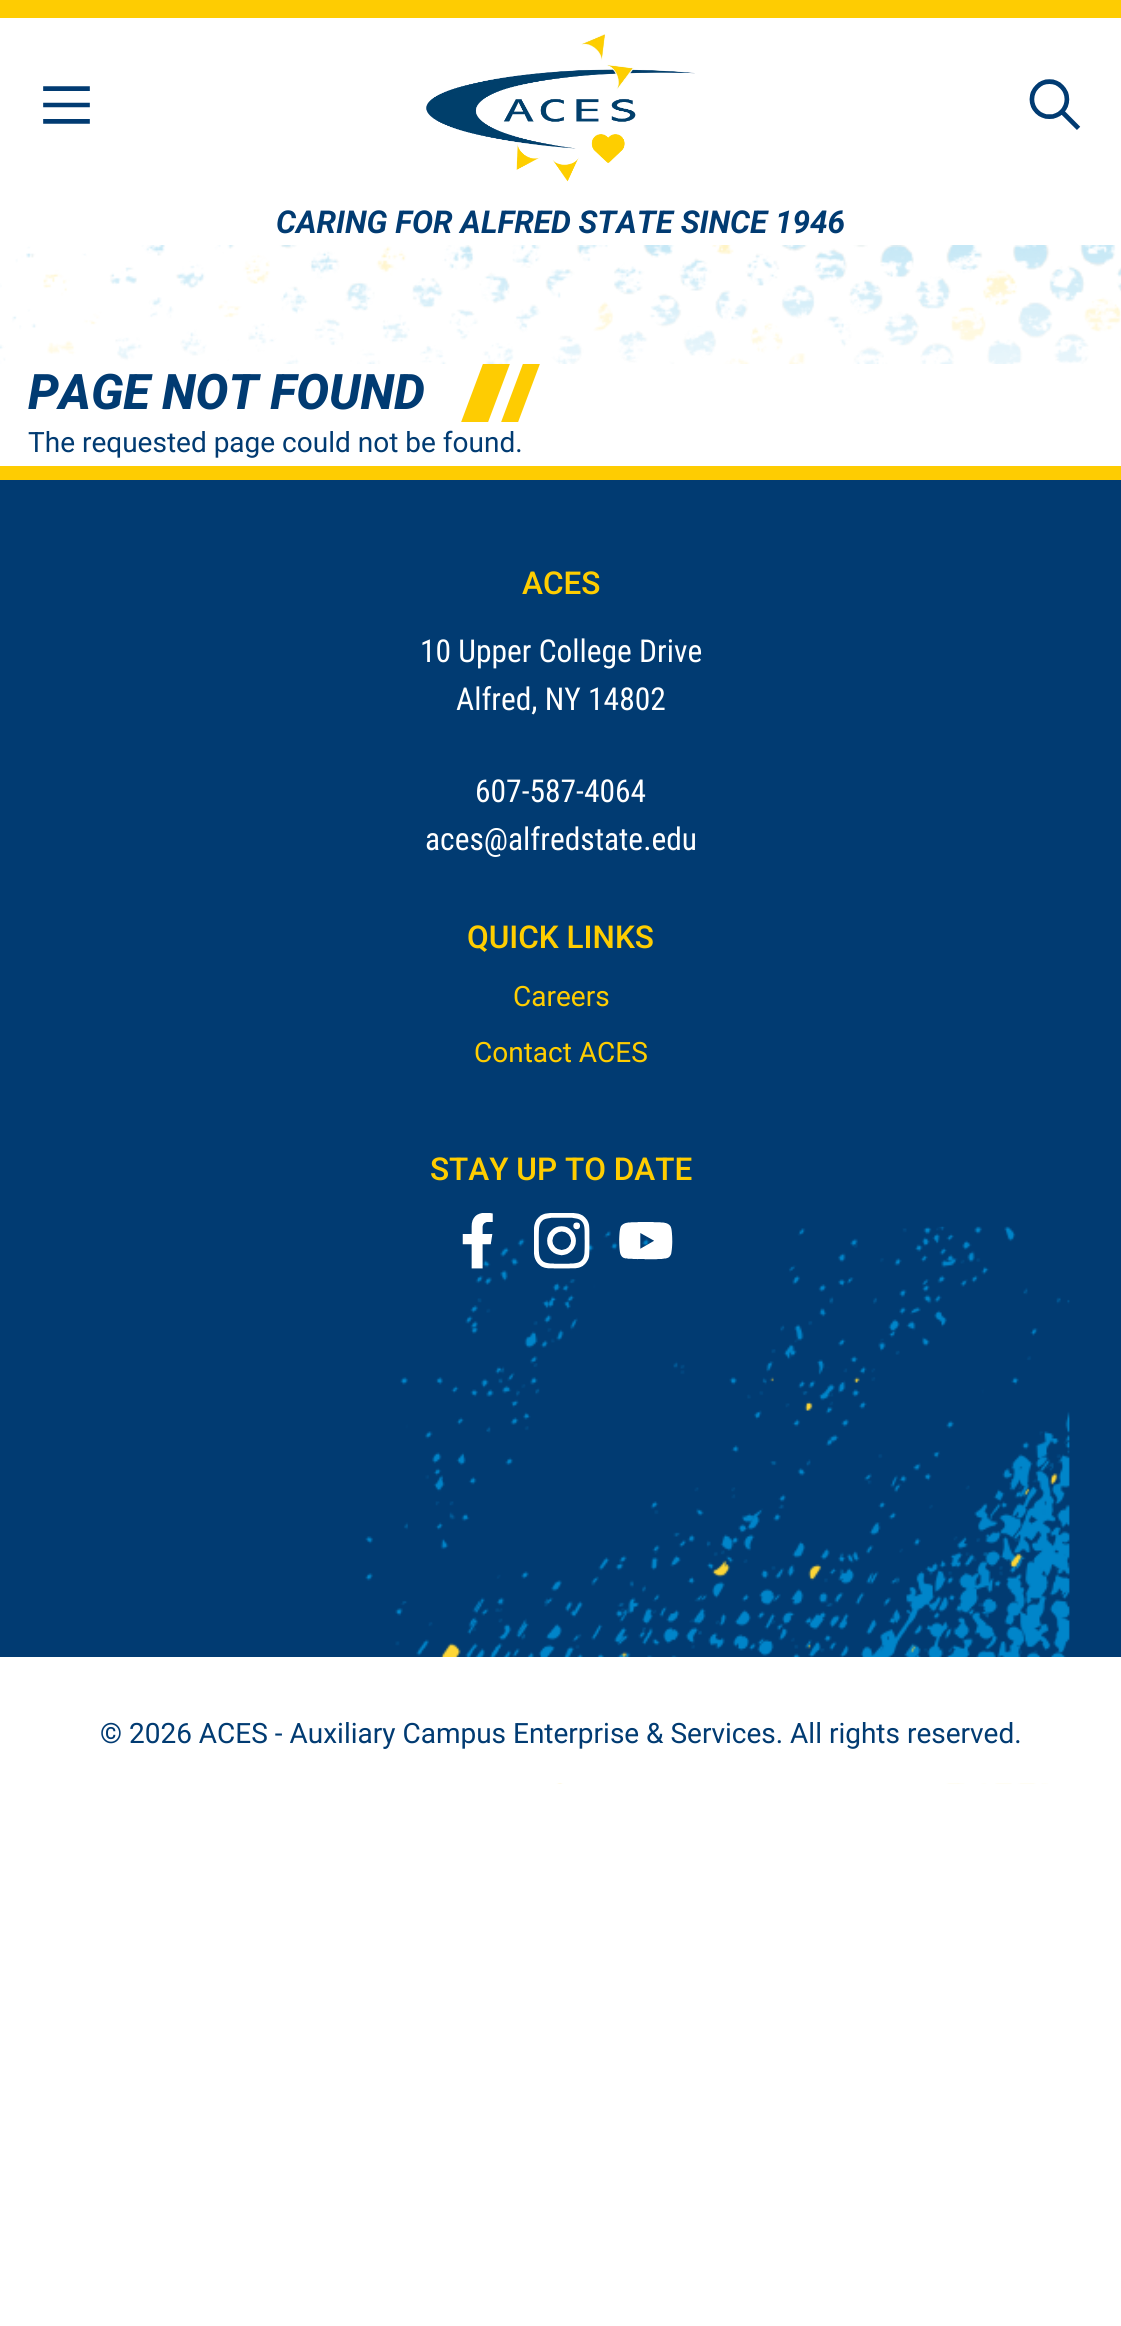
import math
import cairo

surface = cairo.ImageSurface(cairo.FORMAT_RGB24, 1121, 2326)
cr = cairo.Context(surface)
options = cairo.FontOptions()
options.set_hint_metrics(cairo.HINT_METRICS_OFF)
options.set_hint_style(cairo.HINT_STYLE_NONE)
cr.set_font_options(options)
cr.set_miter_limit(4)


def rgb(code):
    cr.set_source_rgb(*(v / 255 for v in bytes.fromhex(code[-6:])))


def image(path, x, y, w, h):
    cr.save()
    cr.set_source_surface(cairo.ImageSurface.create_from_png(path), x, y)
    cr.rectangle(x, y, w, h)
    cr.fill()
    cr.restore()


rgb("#ffffff")
cr.paint()
rgb("#fecc02")
cr.rectangle(0, 0, 1121, 18)
cr.fill()
image("img/1.png", 43, 86, 47, 38)
image("img/2.png", 1029, 79, 52, 51)
image("img/3.png", 426, 34, 269, 148)
image("img/4.png", 0, 245, 1121, 119)
cr.save()
cr.rectangle(453, 364, 95, 58)
cr.clip()
cr.set_fill_rule(cairo.FILL_RULE_EVEN_ODD)
cr.new_path()
cr.move_to(490, 345)
cr.line_to(517, 345)
cr.line_to(481, 441)
cr.line_to(454, 441)
cr.close_path()
cr.fill()
cr.new_path()
cr.move_to(530, 345)
cr.line_to(547, 345)
cr.line_to(511, 441)
cr.line_to(494, 441)
cr.close_path()
cr.fill()
cr.restore()
rgb("#013b72")
cr.rectangle(0, 480, 1121, 1177)
cr.fill()
image("img/5.png", 365, 1226, 705, 558)
rgb("#fecc02")
cr.rectangle(0, 466, 1121, 14)
cr.fill()
image("img/6.png", 462, 1213, 31, 56)
image("img/7.png", 534, 1213, 56, 56)
image("img/8.png", 619, 1222, 54, 38)
rgb("#ffffff")
cr.rectangle(365, 1657, 705, 126)
cr.fill()
cr.select_font_face("Roboto", cairo.FONT_SLANT_ITALIC, cairo.FONT_WEIGHT_BOLD)
cr.set_font_size(31.5)
rgb("#013b72")
cr.move_to(276, 233)
cr.show_text("CARING FOR ALFRED STATE SINCE 1946")
cr.select_font_face("Roboto ExtraBold", cairo.FONT_SLANT_ITALIC)
cr.set_font_size(49)
cr.move_to(28, 409)
cr.show_text("PAGE NOT FOUND")
cr.select_font_face("Roboto")
cr.set_font_size(28)
cr.move_to(28, 452)
cr.show_text("The requested page could not be found.")
cr.select_font_face("Roboto Medium")
cr.set_font_size(31.5)
rgb("#ffcd00")
cr.move_to(522, 594)
cr.show_text("ACES")
cr.select_font_face("Roboto Condensed")
rgb("#ffffff")
for x, y, s in [
    (420, 662, "10 Upper College Drive"),
    (456, 710, "Alfred, NY 14802"),
    (475, 802, "607-587-4064"),
    (425, 850, "aces@alfredstate.edu"),
]:
    cr.move_to(x, y)
    cr.show_text(s)
cr.select_font_face("Roboto Medium")
rgb("#ffcd00")
cr.move_to(467, 948)
cr.show_text("QUICK LINKS")
cr.select_font_face("Roboto")
cr.set_font_size(28)
cr.move_to(513, 1006)
cr.show_text("Careers")
cr.move_to(474, 1062)
cr.show_text("Contact ACES")
cr.select_font_face("Roboto Medium")
cr.set_font_size(31.5)
cr.move_to(430, 1180)
cr.show_text("STAY UP TO DATE")
cr.select_font_face("Roboto")
cr.set_font_size(28)
rgb("#013b72")
cr.move_to(100, 1743)
cr.show_text("© 2026 ACES - Auxiliary Campus Enterprise & Services. All rights reserved.")
surface.write_to_png("page.png")
